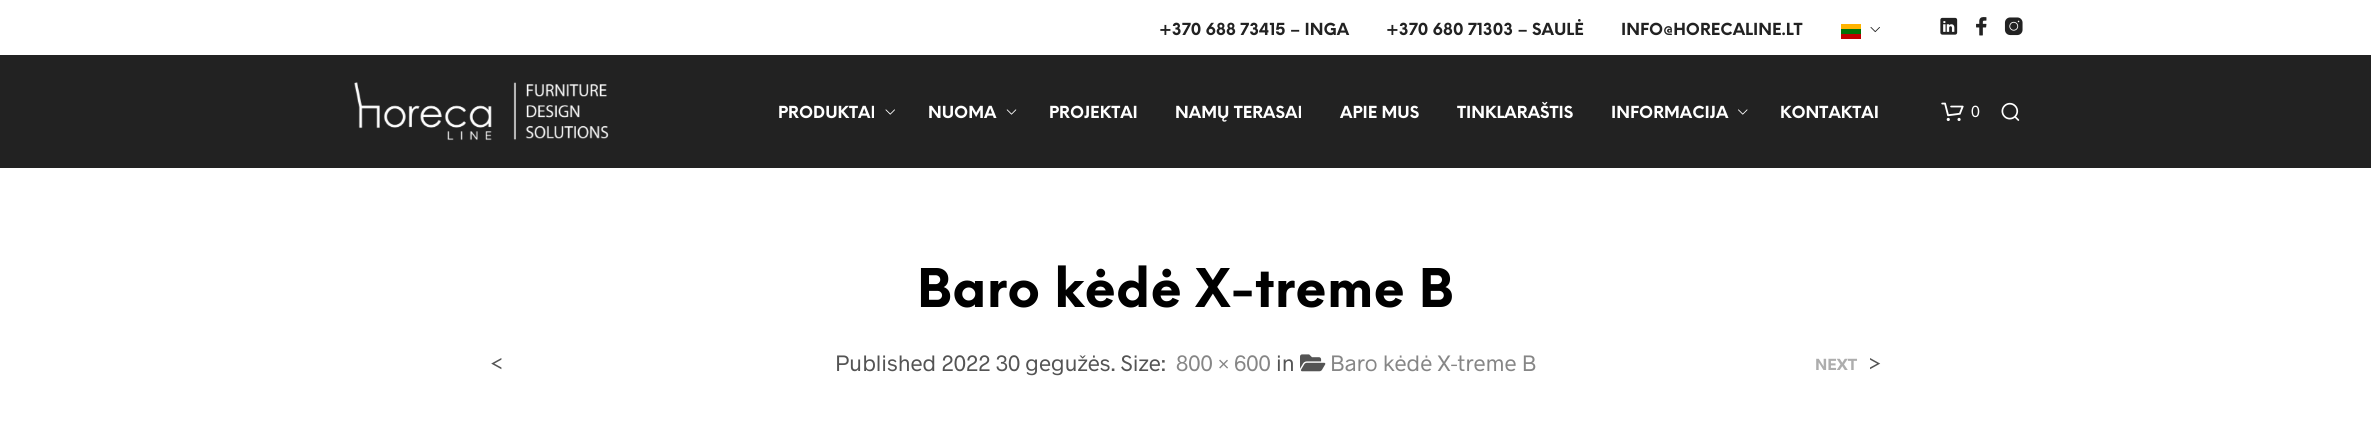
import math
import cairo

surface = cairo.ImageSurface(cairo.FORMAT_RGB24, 2371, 424)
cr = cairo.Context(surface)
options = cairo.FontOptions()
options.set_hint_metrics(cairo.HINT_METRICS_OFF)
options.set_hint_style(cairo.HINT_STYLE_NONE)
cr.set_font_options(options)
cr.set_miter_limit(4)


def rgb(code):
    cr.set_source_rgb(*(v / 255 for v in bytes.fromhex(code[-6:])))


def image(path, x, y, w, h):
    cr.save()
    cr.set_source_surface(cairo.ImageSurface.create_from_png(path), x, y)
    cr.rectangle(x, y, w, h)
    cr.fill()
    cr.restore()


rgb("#ffffff")
cr.paint()
for x, y, w, h, color in [
    (1841, 29, 20, 5, "#007308"),
    (1841, 34, 20, 5, "#bf0000"),
    (1841, 24, 20, 5, "#ffb300"),
]:
    rgb(color)
    cr.rectangle(x, y, w, h)
    cr.fill()
image("img/1.png", 1870, 27, 10, 6)
image("img/2.png", 1940, 17, 18, 18)
image("img/3.png", 1976, 17, 11, 19)
image("img/4.png", 2004, 17, 19, 19)
rgb("#222222")
cr.rectangle(0, 55, 2371, 113)
cr.fill()
image("img/5.png", 354, 82, 255, 59)
image("img/6.png", 885, 109, 10, 6)
image("img/7.png", 1006, 109, 11, 6)
image("img/8.png", 1738, 109, 10, 6)
image("img/9.png", 1941, 102, 23, 19)
image("img/10.png", 2001, 102, 19, 19)
image("img/11.png", 1300, 354, 26, 18)
cr.select_font_face("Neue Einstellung", cairo.FONT_SLANT_NORMAL, cairo.FONT_WEIGHT_BOLD)
cr.set_font_size(16.25)
for x, y, s in [
    (1159, 35, "+370 688 73415 – INGA"),
    (1386, 35, "+370 680 71303 – SAULĖ"),
    (1621, 35, "INFO@HORECALINE.LT"),
]:
    cr.move_to(x, y)
    cr.show_text(s)
rgb("#ffffff")
for x, y, s in [
    (778, 118, "PRODUKTAI"),
    (928, 118, "NUOMA"),
    (1049, 118, "PROJEKTAI"),
    (1175, 118, "NAMŲ TERASAI"),
    (1340, 118, "APIE MUS"),
    (1457, 118, "TINKLARAŠTIS"),
    (1611, 118, "INFORMACIJA"),
    (1780, 118, "KONTAKTAI"),
]:
    cr.move_to(x, y)
    cr.show_text(s)
cr.select_font_face("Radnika")
cr.move_to(1971, 117)
cr.show_text("0")
cr.select_font_face("Neue Einstellung", cairo.FONT_SLANT_NORMAL, cairo.FONT_WEIGHT_BOLD)
cr.set_font_size(52)
rgb("#000000")
cr.move_to(917, 307)
cr.show_text("Baro kėdė X-treme B")
cr.select_font_face("Radnika")
cr.set_font_size(22.5)
rgb("#545454")
cr.move_to(835, 371)
cr.show_text("Published 2022 30 gegužės. Size:")
rgb("#868686")
cr.move_to(1176, 371)
cr.show_text("800 × 600")
rgb("#545454")
cr.move_to(1276, 371)
cr.show_text("in")
rgb("#868686")
cr.move_to(1330, 371)
cr.show_text("Baro kėdė X-treme B")
rgb("#545454")
cr.move_to(490, 371)
cr.show_text("<")
cr.select_font_face("Radnika", cairo.FONT_SLANT_NORMAL, cairo.FONT_WEIGHT_BOLD)
cr.set_font_size(16.25)
rgb("#adadad")
cr.move_to(1815, 370)
cr.show_text("NEXT")
cr.select_font_face("Radnika")
cr.set_font_size(22.5)
rgb("#545454")
cr.move_to(1868, 371)
cr.show_text(">")
surface.write_to_png("page.png")
